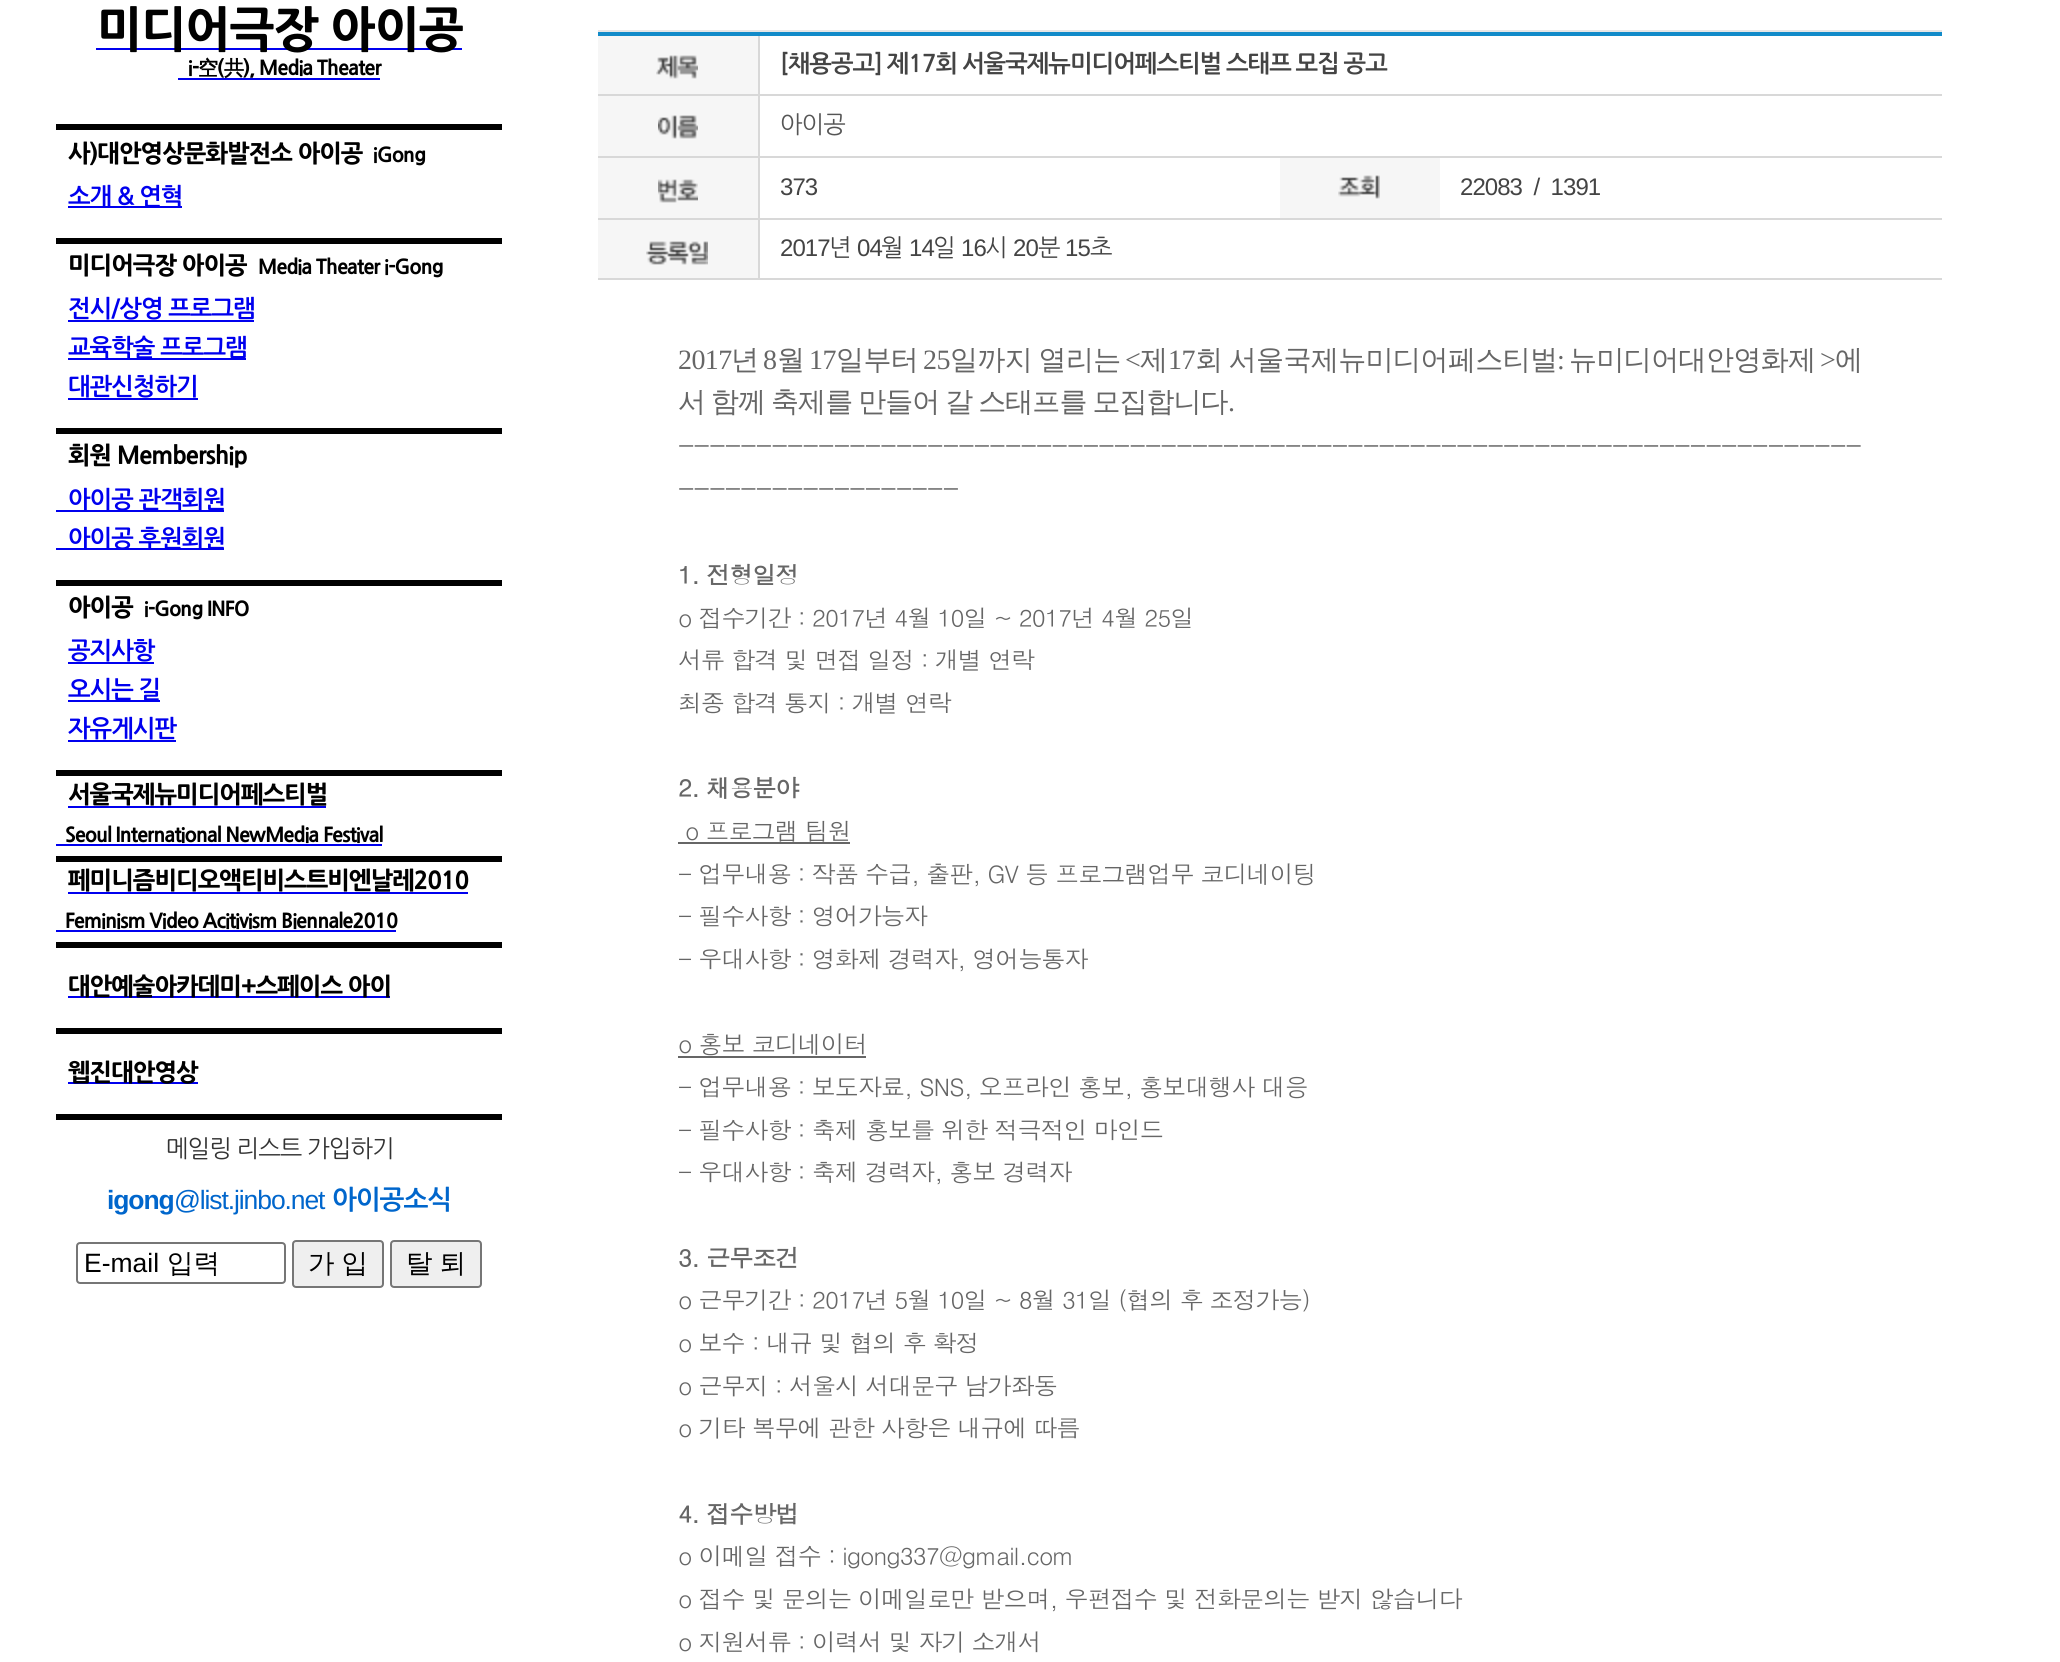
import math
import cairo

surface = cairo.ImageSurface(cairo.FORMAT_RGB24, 2060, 1662)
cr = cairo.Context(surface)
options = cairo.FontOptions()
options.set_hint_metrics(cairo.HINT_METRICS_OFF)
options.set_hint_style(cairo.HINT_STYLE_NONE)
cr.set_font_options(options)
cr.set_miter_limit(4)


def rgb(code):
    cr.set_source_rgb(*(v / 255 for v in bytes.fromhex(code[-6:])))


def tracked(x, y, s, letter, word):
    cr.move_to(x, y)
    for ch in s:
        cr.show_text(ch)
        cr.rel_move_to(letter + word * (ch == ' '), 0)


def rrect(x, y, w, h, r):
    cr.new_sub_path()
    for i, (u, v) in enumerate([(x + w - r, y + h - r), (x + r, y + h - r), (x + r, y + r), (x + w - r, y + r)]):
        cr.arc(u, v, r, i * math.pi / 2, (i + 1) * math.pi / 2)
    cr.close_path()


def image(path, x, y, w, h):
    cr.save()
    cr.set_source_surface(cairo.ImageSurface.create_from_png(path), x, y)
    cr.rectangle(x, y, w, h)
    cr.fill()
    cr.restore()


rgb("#ffffff")
cr.paint()
for x, y, w, h, color in [
    (178, 78, 202, 2, "#0000ee"),
    (96, 48, 366, 2, "#0000ee"),
    (56, 124, 446, 6, "#000000"),
    (68, 206, 114, 2, "#0000ee"),
    (56, 238, 446, 6, "#000000"),
    (68, 320, 186, 2, "#0000ee"),
    (68, 358, 178, 2, "#0000ee"),
    (68, 398, 130, 2, "#0000ee"),
    (56, 428, 446, 6, "#000000"),
    (56, 510, 168, 2, "#0000ee"),
    (56, 548, 168, 2, "#0000ee"),
    (56, 580, 446, 6, "#000000"),
    (68, 662, 86, 2, "#0000ee"),
    (68, 700, 92, 2, "#0000ee"),
    (68, 740, 108, 2, "#0000ee"),
    (56, 770, 446, 6, "#000000"),
    (68, 806, 258, 2, "#0000ee"),
    (56, 844, 326, 2, "#0000ee"),
    (56, 856, 446, 6, "#000000"),
    (68, 892, 400, 2, "#0000ee"),
    (56, 930, 340, 2, "#0000ee"),
    (56, 942, 446, 6, "#000000"),
    (68, 996, 322, 2, "#0000ee"),
    (56, 1028, 446, 6, "#000000"),
    (68, 1082, 130, 2, "#0000ee"),
    (56, 1114, 446, 6, "#000000"),
]:
    rgb(color)
    cr.rectangle(x, y, w, h)
    cr.fill()
rrect(77, 1243, 208, 40, 3)
rgb("#767676")
cr.stroke()
rgb("#efefef")
rrect(293, 1241, 90, 46, 3)
cr.fill_preserve()
rgb("#767676")
cr.stroke()
rgb("#efefef")
rrect(391, 1241, 90, 46, 3)
cr.fill_preserve()
rgb("#767676")
cr.stroke()
for x, y, w, h, color in [
    (598, 30, 1344, 2, "#e6e6e6"),
    (598, 32, 1344, 4, "#128bc9"),
    (598, 36, 160, 58, "#f6f6f6"),
]:
    rgb(color)
    cr.rectangle(x, y, w, h)
    cr.fill()
image("img/1.png", 656, 55, 42, 24)
for x, y, w, h, color in [
    (758, 36, 2, 58, "#d8d8d8"),
    (598, 94, 1344, 2, "#d8d8d8"),
    (598, 96, 160, 60, "#f6f6f6"),
]:
    rgb(color)
    cr.rectangle(x, y, w, h)
    cr.fill()
image("img/2.png", 658, 115, 40, 24)
for x, y, w, h, color in [
    (758, 96, 2, 60, "#d8d8d8"),
    (598, 156, 1344, 2, "#d8d8d8"),
    (598, 158, 160, 60, "#f6f6f6"),
]:
    rgb(color)
    cr.rectangle(x, y, w, h)
    cr.fill()
image("img/3.png", 658, 179, 40, 24)
rgb("#d8d8d8")
cr.rectangle(758, 158, 2, 60)
cr.fill()
rgb("#f6f6f6")
cr.rectangle(1280, 158, 160, 60)
cr.fill()
image("img/4.png", 1338, 175, 42, 24)
rgb("#d8d8d8")
cr.rectangle(598, 218, 1344, 2)
cr.fill()
rgb("#f6f6f6")
cr.rectangle(598, 220, 160, 58)
cr.fill()
image("img/5.png", 646, 241, 62, 24)
for x, y, w, h, color in [
    (758, 220, 2, 58, "#d8d8d8"),
    (598, 278, 1344, 2, "#d8d8d8"),
    (678, 842, 172, 2, "#666666"),
    (678, 1056, 188, 2, "#666666"),
]:
    rgb(color)
    cr.rectangle(x, y, w, h)
    cr.fill()
cr.select_font_face("NanumGothic ExtraBold")
cr.set_font_size(48)
rgb("#000000")
tracked(97, 47, "미디어극장 아이공", -0.95, 0)
cr.set_font_size(20)
tracked(188, 75, "i-", -0.95, 0)
cr.select_font_face("WenQuanYi Zen Hei", cairo.FONT_SLANT_NORMAL, cairo.FONT_WEIGHT_BOLD)
tracked(198, 75, "空", -0.95, 0)
cr.select_font_face("NanumGothic ExtraBold")
tracked(217, 75, "(", -0.95, 0)
cr.select_font_face("WenQuanYi Zen Hei", cairo.FONT_SLANT_NORMAL, cairo.FONT_WEIGHT_BOLD)
tracked(224, 75, "共", -0.95, 0)
cr.select_font_face("NanumGothic ExtraBold")
tracked(243, 75, "), Media Theater", -0.95, 0)
cr.set_font_size(24)
tracked(68, 162, "사)대안영상문화발전소 아이공", -0.95, 0)
cr.set_font_size(20)
tracked(373, 162, "iGong", -0.95, 0)
cr.select_font_face("NanumGothic", cairo.FONT_SLANT_NORMAL, cairo.FONT_WEIGHT_BOLD)
cr.set_font_size(24)
rgb("#0000ee")
tracked(68, 205, "소개 & 연혁", -0.95, 0)
cr.select_font_face("NanumGothic ExtraBold")
rgb("#000000")
tracked(68, 274, "미디어극장 아이공", -0.95, 0)
cr.set_font_size(20)
tracked(258, 274, "Media Theater i-Gong", -0.95, 0)
cr.select_font_face("NanumGothic", cairo.FONT_SLANT_NORMAL, cairo.FONT_WEIGHT_BOLD)
cr.set_font_size(24)
rgb("#0000ee")
for x, y, s in [
    (68, 317, "전시/상영 프로그램"),
    (68, 356, "교육학술 프로그램"),
    (68, 395, "대관신청하기"),
]:
    tracked(x, y, s, -0.95, 0)
cr.select_font_face("NanumGothic ExtraBold")
rgb("#000000")
tracked(68, 464, "회원 Membership", -0.95, 0)
cr.select_font_face("NanumGothic", cairo.FONT_SLANT_NORMAL, cairo.FONT_WEIGHT_BOLD)
rgb("#0000ee")
tracked(68, 508, "아이공 관객회원", -0.95, 0)
tracked(68, 547, "아이공 후원회원", -0.95, 0)
cr.select_font_face("NanumGothic ExtraBold")
rgb("#000000")
tracked(68, 616, "아이공", -0.95, 0)
cr.set_font_size(20)
tracked(144, 616, "i-Gong INFO", -0.95, 0)
cr.select_font_face("NanumGothic", cairo.FONT_SLANT_NORMAL, cairo.FONT_WEIGHT_BOLD)
cr.set_font_size(24)
rgb("#0000ee")
for x, y, s in [
    (68, 659, "공지사항"),
    (68, 698, "오시는 길"),
    (68, 737, "자유게시판"),
]:
    tracked(x, y, s, -0.95, 0)
cr.select_font_face("NanumGothic ExtraBold")
rgb("#000000")
tracked(68, 803, "서울국제뉴미디어페스티벌", -0.95, 0)
cr.set_font_size(20)
tracked(65, 842, "Seoul International NewMedia Festival", -0.95, 0)
cr.set_font_size(24)
tracked(68, 889, "페미니즘비디오액티비스트비엔날레2010", -0.95, 0)
cr.set_font_size(20)
tracked(65, 928, "Feminism Video Acitivism Biennale2010", -0.95, 0)
cr.set_font_size(24)
tracked(68, 995, "대안예술아카데미+스페이스 아이", -0.95, 0)
tracked(68, 1081, "웹진대안영상", -0.95, 0)
cr.select_font_face("NanumGothic")
rgb("#333333")
tracked(166, 1157, "메일링 리스트 가입하기", -0.95, 0)
cr.select_font_face("Liberation Sans", cairo.FONT_SLANT_NORMAL, cairo.FONT_WEIGHT_BOLD)
cr.set_font_size(26.5)
rgb("#0066cc")
tracked(107, 1209, "igong", -1.1, 0)
cr.select_font_face("Liberation Sans")
tracked(174, 1209, "@list.jinbo.net", -1.1, 0)
cr.select_font_face("NanumGothic", cairo.FONT_SLANT_NORMAL, cairo.FONT_WEIGHT_BOLD)
tracked(332, 1209, "아이공소식", -1.1, 0)
cr.select_font_face("Liberation Sans")
rgb("#000000")
cr.move_to(84, 1272)
cr.show_text("E-mail")
cr.select_font_face("WenQuanYi Zen Hei Medium")
cr.move_to(167, 1272)
cr.show_text("입력")
tracked(308, 1272, "가 입", 0, -1)
tracked(406, 1272, "탈 퇴", 0, -1)
cr.select_font_face("NanumGothic", cairo.FONT_SLANT_NORMAL, cairo.FONT_WEIGHT_BOLD)
cr.set_font_size(24)
rgb("#444444")
tracked(780, 72, "[채용공고] 제17회 서울국제뉴미디어페스티벌 스태프 모집 공고", -0.95, -1)
cr.select_font_face("NanumGothic")
rgb("#555555")
tracked(780, 133, "아이공", -0.95, 0)
cr.select_font_face("Liberation Sans")
rgb("#444444")
for x, y, s in [
    (780, 195, "373"),
    (1460, 195, "22083  /  1391"),
    (780, 256, "2017"),
]:
    tracked(x, y, s, -0.95, 0)
cr.select_font_face("NanumGothic")
tracked(829, 256, "년", -0.95, 0)
cr.select_font_face("Liberation Sans")
tracked(857, 256, "04", -0.95, 0)
cr.select_font_face("NanumGothic")
tracked(881, 256, "월", -0.95, 0)
cr.select_font_face("Liberation Sans")
tracked(909, 256, "14", -0.95, 0)
cr.select_font_face("NanumGothic")
tracked(933, 256, "일", -0.95, 0)
cr.select_font_face("Liberation Sans")
tracked(961, 256, "16", -0.95, 0)
cr.select_font_face("NanumGothic")
tracked(985, 256, "시", -0.95, 0)
cr.select_font_face("Liberation Sans")
tracked(1013, 256, "20", -0.95, 0)
cr.select_font_face("NanumGothic")
tracked(1038, 256, "분", -0.95, 0)
cr.select_font_face("Liberation Sans")
tracked(1065, 256, "15", -0.95, 0)
cr.select_font_face("NanumGothic")
tracked(1090, 256, "초", -0.95, 0)
cr.select_font_face("Liberation Serif")
cr.set_font_size(28)
rgb("#666666")
tracked(678, 369, "2017", -0.6, 0)
cr.select_font_face("WenQuanYi Zen Hei Medium")
tracked(731, 369, "년", -0.6, 0)
cr.select_font_face("Liberation Serif")
tracked(763, 369, "8", -0.6, 0)
cr.select_font_face("WenQuanYi Zen Hei Medium")
tracked(777, 369, "월", -0.6, 0)
cr.select_font_face("Liberation Serif")
tracked(809, 369, "17", -0.6, 0)
cr.select_font_face("WenQuanYi Zen Hei Medium")
tracked(836, 369, "일부터", -0.6, 0)
cr.select_font_face("Liberation Serif")
tracked(923, 369, "25", -0.6, 0)
cr.select_font_face("WenQuanYi Zen Hei Medium")
tracked(950, 369, "일까지 열리는", -0.6, -1.5)
cr.select_font_face("Liberation Serif")
tracked(1125, 369, "<", -0.6, 0)
cr.select_font_face("WenQuanYi Zen Hei Medium")
tracked(1140, 369, "제", -0.6, 0)
cr.select_font_face("Liberation Serif")
tracked(1168, 369, "17", -0.6, 0)
cr.select_font_face("WenQuanYi Zen Hei Medium")
tracked(1195, 369, "회 서울국제뉴미디어페스티벌", -0.6, -1.5)
cr.select_font_face("Liberation Serif")
tracked(1557, 369, ":", -0.6, 0)
cr.select_font_face("WenQuanYi Zen Hei Medium")
tracked(1569, 369, "뉴미디어대안영화제", -0.6, 0)
cr.select_font_face("Liberation Serif")
tracked(1820, 369, ">", -0.6, 0)
cr.select_font_face("WenQuanYi Zen Hei Medium")
tracked(1835, 369, "에", -0.6, 0)
tracked(678, 411, "서 함께 축제를 만들어 갈 스태프를 모집합니다", -0.95, -1.5)
cr.select_font_face("Liberation Serif")
tracked(1228, 411, ".", -0.95, 0)
cr.select_font_face("Dotum")
tracked(678, 456, "----------------------------------------------------------------------------", -0.95, 0)
tracked(678, 499, "------------------", -0.95, 0)
cr.select_font_face("Dotum", cairo.FONT_SLANT_NORMAL, cairo.FONT_WEIGHT_BOLD)
cr.set_font_size(24)
tracked(678, 584, "1. 전형일정", -0.95, 0)
cr.select_font_face("Dotum")
for x, y, s in [
    (678, 627, "o 접수기간 : 2017년 4월 10일 ~ 2017년 4월 25일"),
    (678, 669, "서류 합격 및 면접 일정 : 개별 연락"),
    (678, 712, "최종 합격 통지 : 개별 연락"),
]:
    tracked(x, y, s, -0.95, 0)
cr.select_font_face("Dotum", cairo.FONT_SLANT_NORMAL, cairo.FONT_WEIGHT_BOLD)
tracked(678, 797, "2. 채용분야", -0.95, 0)
cr.select_font_face("Dotum")
for x, y, s in [
    (685, 840, "o 프로그램 팀원"),
    (678, 883, "- 업무내용 : 작품 수급, 출판, GV 등 프로그램업무 코디네이팅"),
    (678, 925, "- 필수사항 : 영어가능자"),
    (678, 968, "- 우대사항 : 영화제 경력자, 영어능통자"),
    (678, 1053, "o 홍보 코디네이터"),
    (678, 1096, "- 업무내용 : 보도자료, SNS, 오프라인 홍보, 홍보대행사 대응"),
    (678, 1139, "- 필수사항 : 축제 홍보를 위한 적극적인 마인드"),
    (678, 1181, "- 우대사항 : 축제 경력자, 홍보 경력자"),
]:
    tracked(x, y, s, -0.95, 0)
cr.select_font_face("Dotum", cairo.FONT_SLANT_NORMAL, cairo.FONT_WEIGHT_BOLD)
tracked(678, 1267, "3. 근무조건", -0.95, 0)
cr.select_font_face("Dotum")
for x, y, s in [
    (678, 1309, "o 근무기간 : 2017년 5월 10일 ~ 8월 31일 (협의 후 조정가능)"),
    (678, 1352, "o 보수 : 내규 및 협의 후 확정"),
    (678, 1395, "o 근무지 : 서울시 서대문구 남가좌동"),
    (678, 1437, "o 기타 복무에 관한 사항은 내규에 따름"),
]:
    tracked(x, y, s, -0.95, 0)
cr.select_font_face("Dotum", cairo.FONT_SLANT_NORMAL, cairo.FONT_WEIGHT_BOLD)
tracked(678, 1523, "4. 접수방법", -0.95, 0)
cr.select_font_face("Dotum")
for x, y, s in [
    (678, 1565, "o 이메일 접수 : igong337@gmail.com"),
    (678, 1608, "o 접수 및 문의는 이메일로만 받으며, 우편접수 및 전화문의는 받지 않습니다"),
    (678, 1651, "o 지원서류 : 이력서 및 자기 소개서"),
]:
    tracked(x, y, s, -0.95, 0)
surface.write_to_png("page.png")
